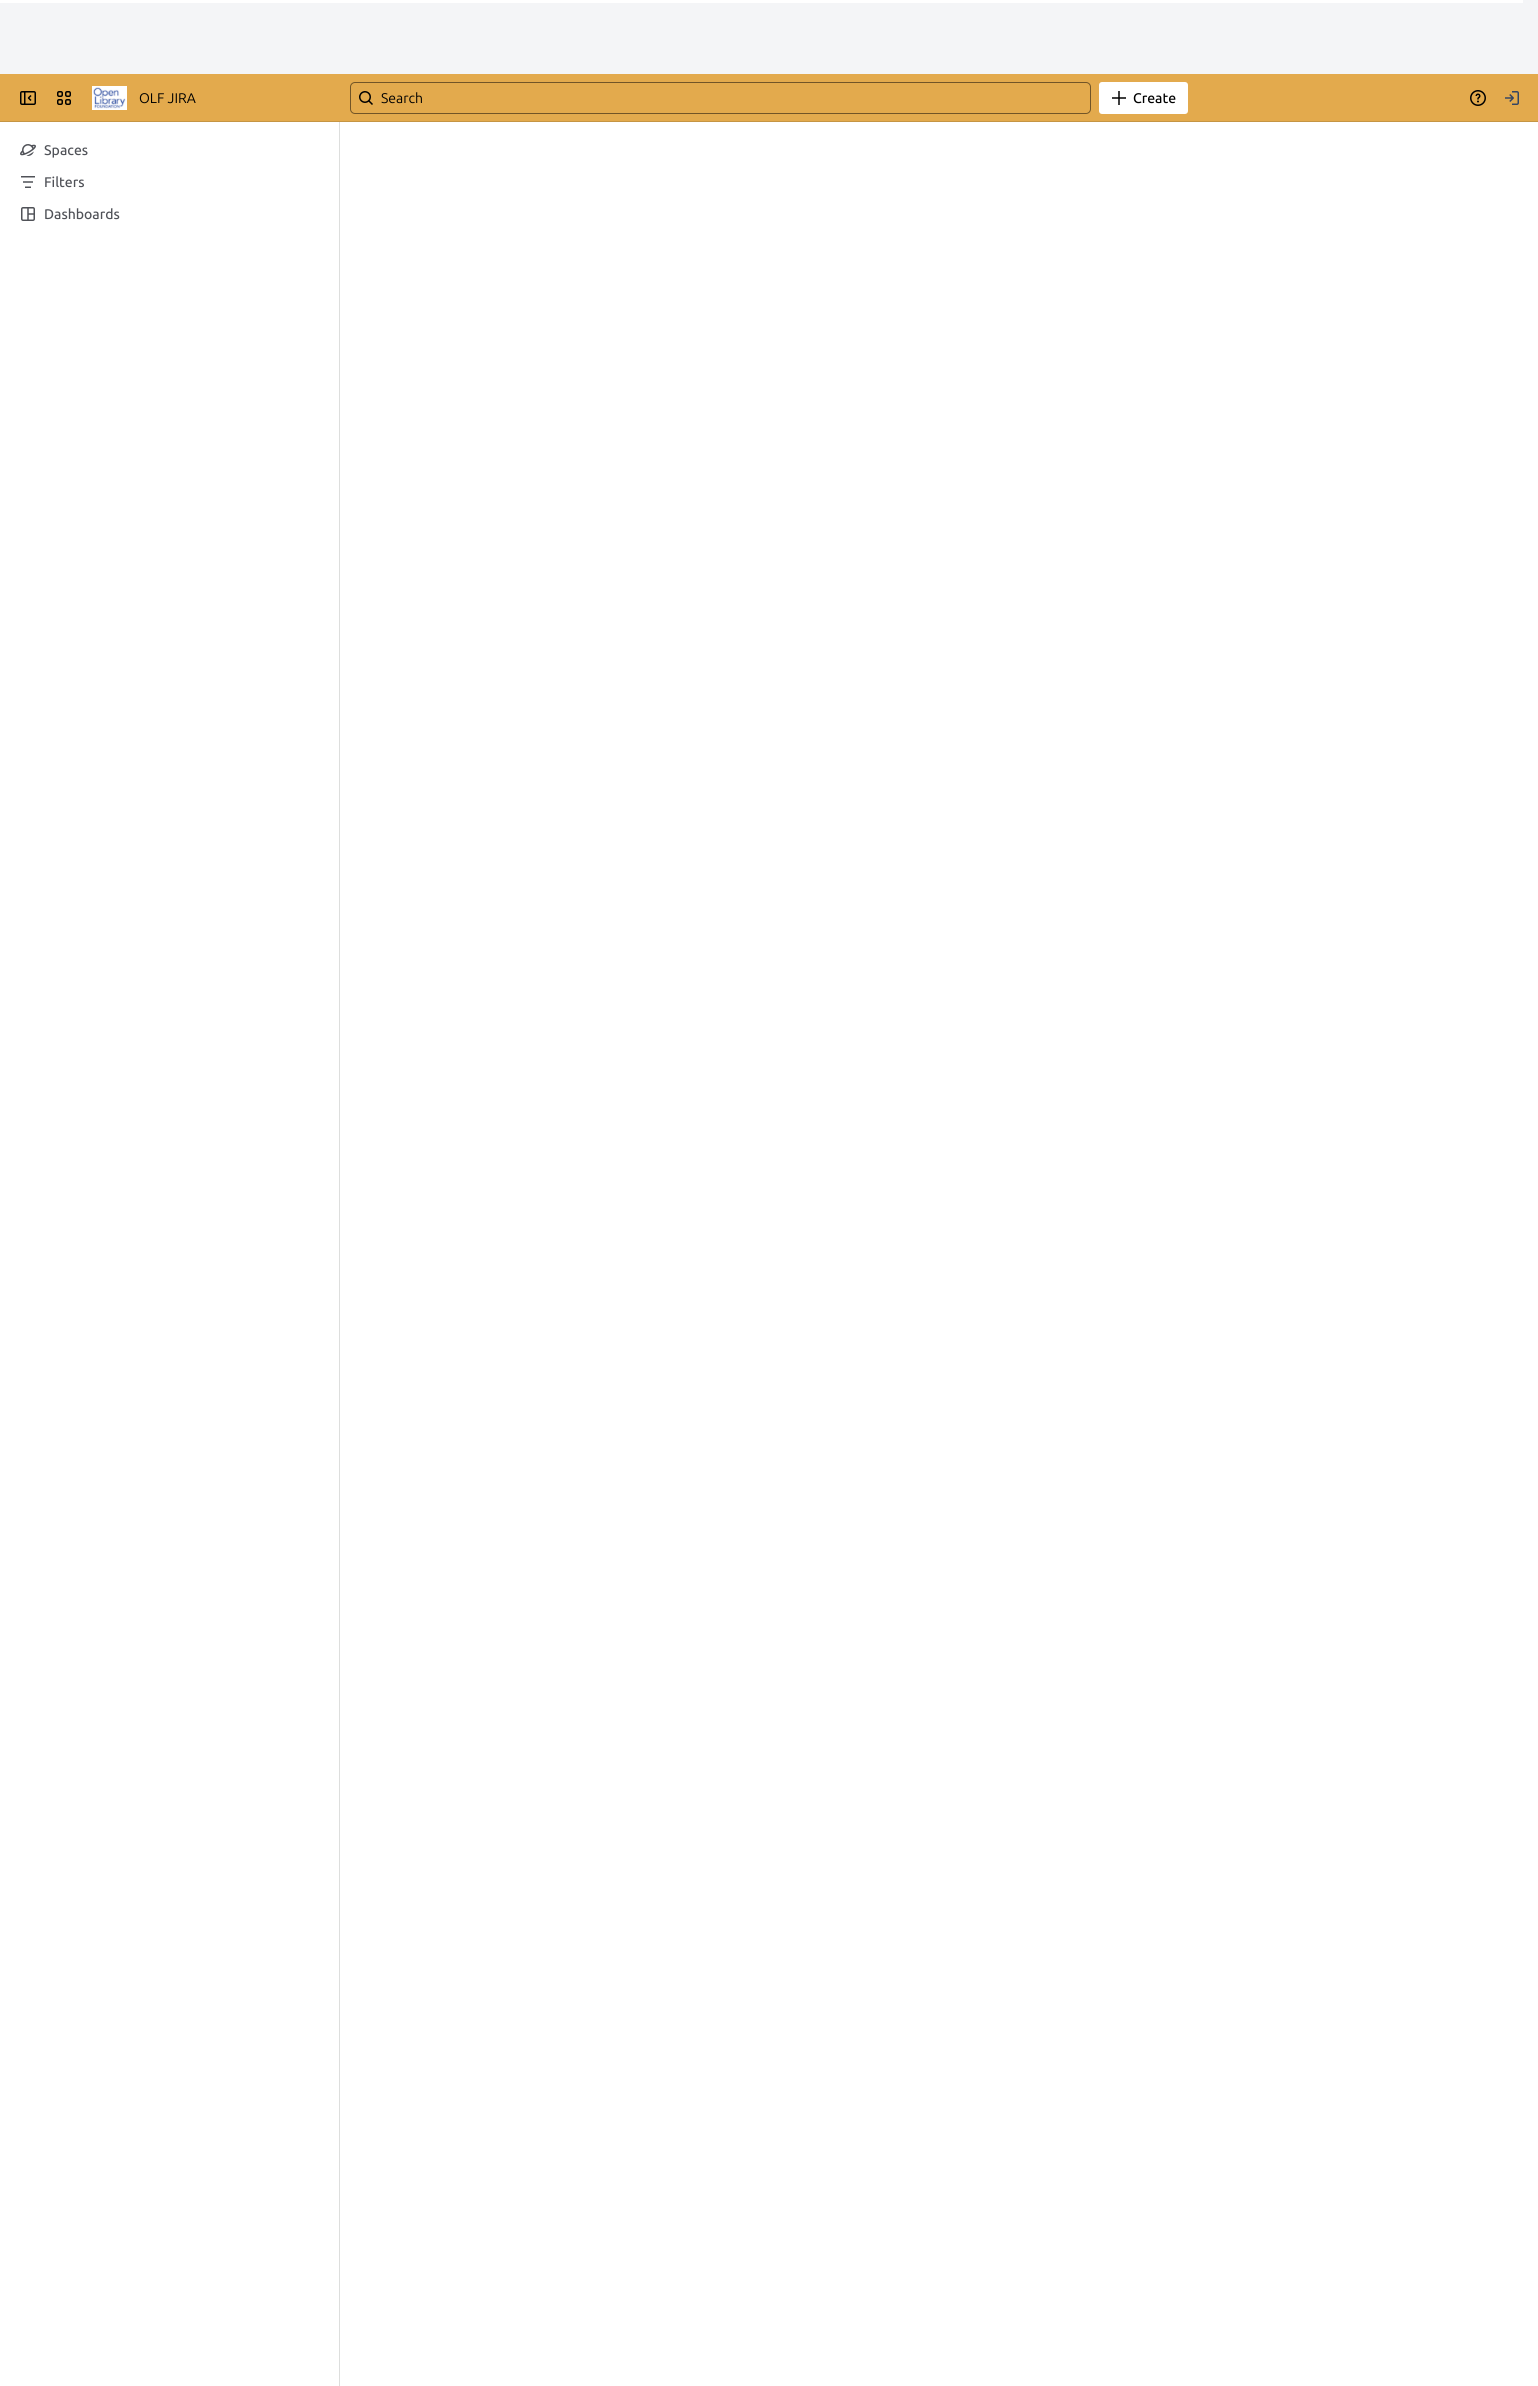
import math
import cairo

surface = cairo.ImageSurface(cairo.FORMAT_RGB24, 1538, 2386)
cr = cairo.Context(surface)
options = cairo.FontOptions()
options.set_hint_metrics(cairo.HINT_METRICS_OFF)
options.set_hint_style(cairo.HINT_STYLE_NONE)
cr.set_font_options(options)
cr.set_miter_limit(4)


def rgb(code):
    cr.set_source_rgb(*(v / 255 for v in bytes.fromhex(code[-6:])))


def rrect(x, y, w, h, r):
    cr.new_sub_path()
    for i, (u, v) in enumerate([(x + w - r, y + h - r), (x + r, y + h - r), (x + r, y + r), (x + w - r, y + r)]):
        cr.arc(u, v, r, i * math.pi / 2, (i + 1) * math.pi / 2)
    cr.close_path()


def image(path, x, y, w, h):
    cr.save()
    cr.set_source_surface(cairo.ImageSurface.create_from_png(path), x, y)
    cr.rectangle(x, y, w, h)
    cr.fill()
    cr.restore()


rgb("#ffffff")
cr.paint()
for x, y, w, h, color in [
    (0, 0, 1538, 74, "#f4f5f7"),
    (0, 0, 1523, 3, "#ffffff"),
    (0, 74, 1538, 47, "#e3aa4d"),
    (0, 121, 1538, 1, "#c59544"),
]:
    rgb(color)
    cr.rectangle(x, y, w, h)
    cr.fill()
image("img/1.png", 20, 91, 16, 14)
image("img/2.png", 57, 91, 14, 14)
image("img/3.png", 92, 86, 35, 24)
rrect(350.5, 82.5, 740, 31, 4.5)
rgb("#725527")
cr.set_line_width(1)
cr.stroke()
image("img/4.png", 359, 91, 14, 14)
rgb("#ffffff")
rrect(1099, 82, 89, 32, 3)
cr.fill()
image("img/5.png", 1112, 91, 14, 14)
image("img/6.png", 1470, 90, 16, 16)
image("img/7.png", 1505, 91, 14, 14)
rgb("#dddedd")
cr.rectangle(339, 122, 1, 2264)
cr.fill()
image("img/8.png", 20, 144, 16, 12)
image("img/9.png", 21, 176, 14, 12)
image("img/10.png", 21, 207, 14, 14)
cr.select_font_face("Ubuntu")
cr.set_font_size(14)
rgb("#000000")
cr.move_to(139, 103)
cr.show_text("OLF JIRA")
cr.move_to(381, 103)
cr.show_text("Search")
cr.select_font_face("Ubuntu Medium")
cr.move_to(1133, 103)
cr.show_text("Create")
rgb("#505258")
for x, y, s in [
    (44, 155, "Spaces"),
    (44, 187, "Filters"),
    (44, 219, "Dashboards"),
]:
    cr.move_to(x, y)
    cr.show_text(s)
surface.write_to_png("page.png")
